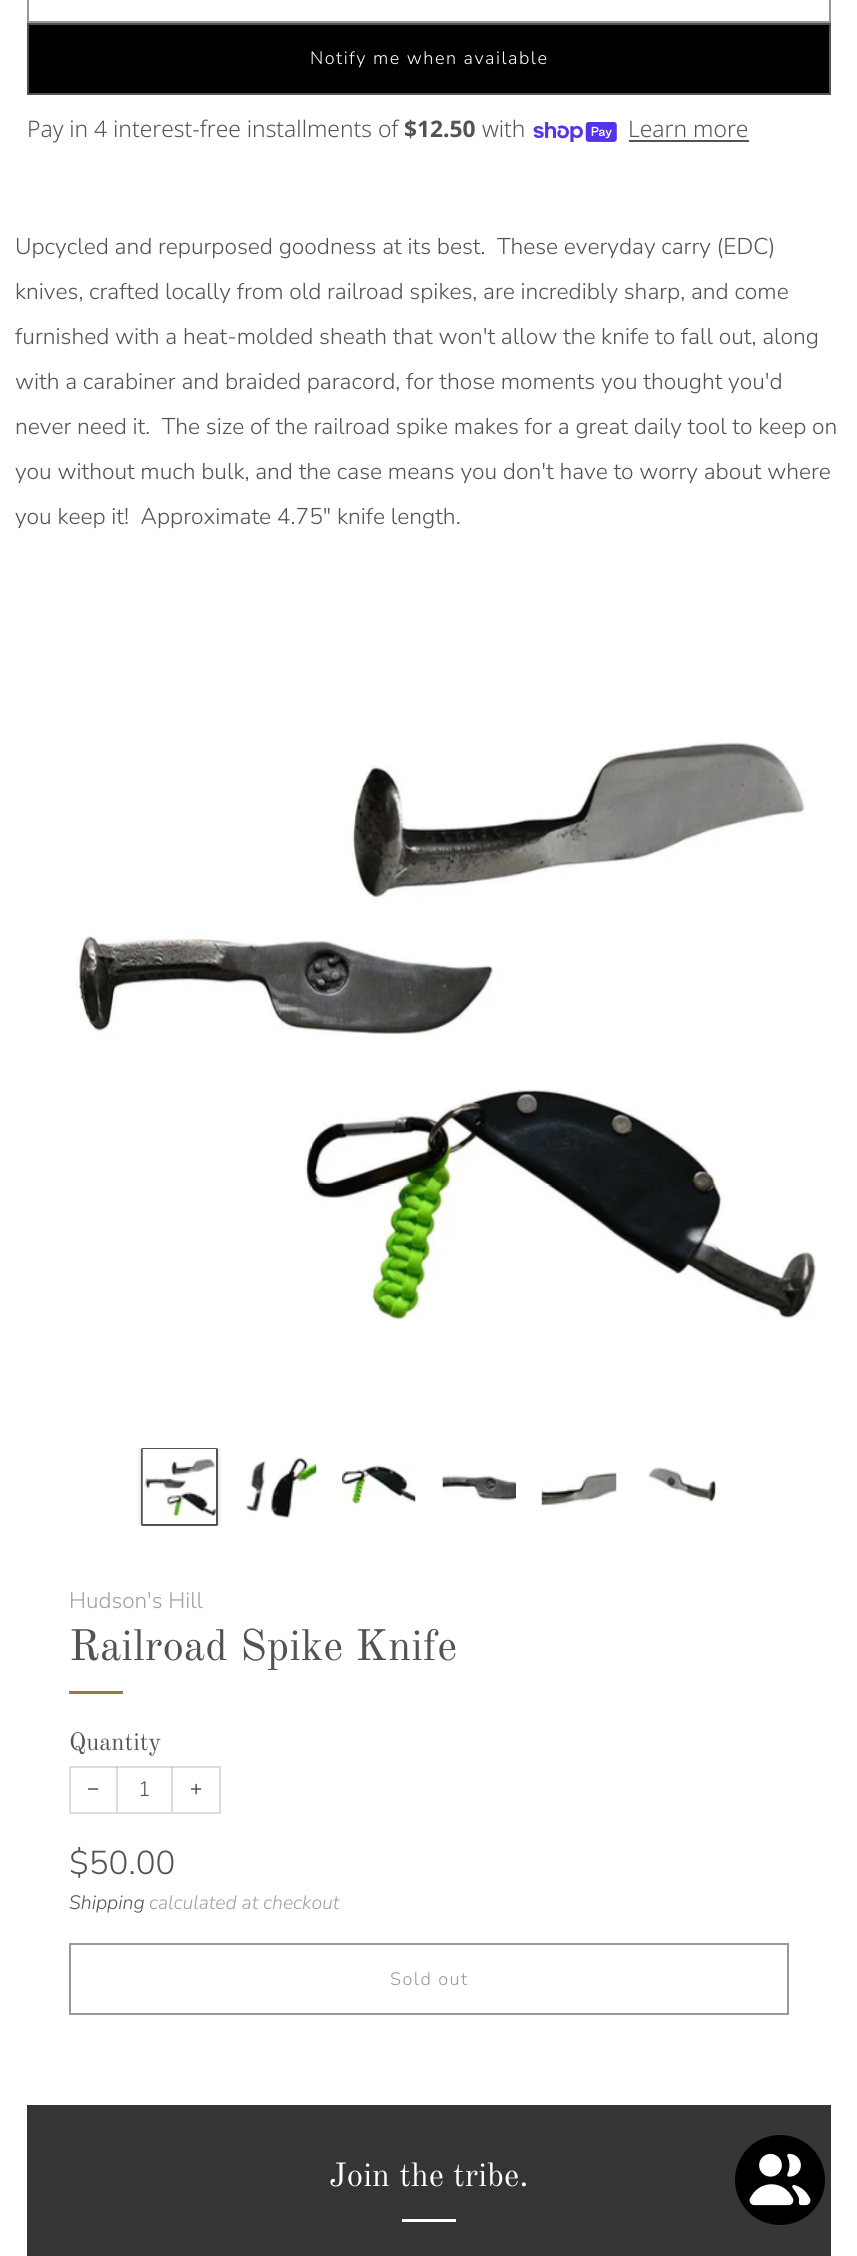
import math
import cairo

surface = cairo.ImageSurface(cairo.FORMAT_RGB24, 857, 2256)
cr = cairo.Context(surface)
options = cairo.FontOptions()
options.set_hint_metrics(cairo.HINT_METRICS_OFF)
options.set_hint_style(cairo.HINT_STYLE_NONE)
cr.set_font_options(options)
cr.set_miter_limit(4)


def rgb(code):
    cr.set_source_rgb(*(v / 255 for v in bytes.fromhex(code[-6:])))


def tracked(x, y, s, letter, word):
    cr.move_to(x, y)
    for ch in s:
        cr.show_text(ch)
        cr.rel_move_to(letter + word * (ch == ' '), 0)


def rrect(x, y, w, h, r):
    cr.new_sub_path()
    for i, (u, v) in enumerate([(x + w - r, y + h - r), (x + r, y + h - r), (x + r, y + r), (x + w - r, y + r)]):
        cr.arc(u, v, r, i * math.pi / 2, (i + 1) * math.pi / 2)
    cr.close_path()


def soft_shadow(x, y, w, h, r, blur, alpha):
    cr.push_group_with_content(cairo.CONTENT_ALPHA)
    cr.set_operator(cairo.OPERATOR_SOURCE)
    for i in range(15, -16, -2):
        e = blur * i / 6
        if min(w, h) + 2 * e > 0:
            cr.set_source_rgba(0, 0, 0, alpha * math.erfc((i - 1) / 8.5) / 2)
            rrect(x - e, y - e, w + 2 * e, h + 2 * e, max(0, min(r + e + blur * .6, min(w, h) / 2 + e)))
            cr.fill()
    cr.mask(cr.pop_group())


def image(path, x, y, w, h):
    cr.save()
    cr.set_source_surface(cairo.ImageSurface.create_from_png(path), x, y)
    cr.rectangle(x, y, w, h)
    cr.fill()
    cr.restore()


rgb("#ffffff")
cr.paint()
cr.rectangle(28, -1, 802, 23)
rgb("#989898")
cr.stroke()
rgb("#000000")
cr.rectangle(28, 24, 802, 70)
cr.fill_preserve()
rgb("#535353")
cr.stroke()
image("img/1.png", 533, 122, 84, 21)
cr.rectangle(629, 140, 120, 2)
cr.fill()
image("img/2.png", 76, 742, 741, 579)
cr.save()
cr.rectangle(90, 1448, 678, 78)
cr.clip()
rgb("#535353")
soft_shadow(140, 1446, 79, 81, 3, 2, 0.2)
cr.restore()
rrect(142, 1449, 75, 76, 0.5)
cr.stroke()
image("img/3.png", 142, 1449, 74, 75)
image("img/4.png", 242, 1456, 75, 64)
image("img/5.png", 342, 1463, 74, 44)
image("img/6.png", 442, 1475, 74, 28)
image("img/7.png", 541, 1472, 76, 35)
image("img/8.png", 648, 1466, 68, 36)
rgb("#997a3b")
cr.rectangle(69, 1691, 54, 3)
cr.fill()
cr.rectangle(70, 1767, 150, 46)
rgb("#dddddd")
cr.stroke()
cr.set_source_rgba(0.325, 0.325, 0.325, 0.2)
cr.rectangle(171, 1767, 2, 45)
cr.fill()
cr.rectangle(116, 1767, 2, 45)
cr.fill()
cr.rectangle(70, 1944, 718, 70)
rgb("#989898")
cr.stroke()
rgb("#353535")
cr.rectangle(27, 2105, 804, 151)
cr.fill()
rgb("#ffffff")
cr.rectangle(402, 2219, 54, 3)
cr.fill()
rgb("#000000")
cr.arc(780, 2180, 45, 0, 2 * math.pi)
cr.fill()
image("img/9.png", 749, 2153, 62, 53)
cr.select_font_face("Nunito Sans Light")
cr.set_font_size(18)
rgb("#ffffff")
tracked(310, 64, "Notify me when available", 1.5, 0)
cr.select_font_face("Noto Sans Light")
cr.set_font_size(22.8)
rgb("#535353")
cr.move_to(27, 137)
cr.show_text("Pay in 4 interest-free installments of")
cr.select_font_face("Noto Sans", cairo.FONT_SLANT_NORMAL, cairo.FONT_WEIGHT_BOLD)
cr.move_to(404, 137)
cr.show_text("$12.50")
cr.select_font_face("Noto Sans Light")
cr.move_to(482, 137)
cr.show_text("with")
cr.move_to(628, 137)
cr.show_text("Learn more")
cr.select_font_face("Nunito Sans Light")
for x, y, s in [
    (15, 254, "Upcycled and repurposed goodness at its best.  These everyday carry (EDC)"),
    (15, 299, "knives, crafted locally from old railroad spikes, are incredibly sharp, and come"),
    (15, 344, "furnished with a heat-molded sheath that won't allow the knife to fall out, along"),
    (15, 389, "with a carabiner and braided paracord, for those moments you thought you'd"),
    (15, 434, "never need it.  The size of the railroad spike makes for a great daily tool to keep on"),
    (15, 479, "you without much bulk, and the case means you don't have to worry about where"),
    (15, 524, "you keep it!  Approximate 4.75\" knife length."),
]:
    cr.move_to(x, y)
    cr.show_text(s)
cr.set_font_size(22.5)
rgb("#a0a0a0")
cr.move_to(69, 1608)
cr.show_text("Hudson's Hill")
cr.select_font_face("Old Standard TT")
cr.set_font_size(43.25)
rgb("#535353")
cr.move_to(69, 1660)
cr.show_text("Railroad Spike Knife")
cr.set_font_size(24.5)
cr.move_to(69, 1750)
cr.show_text("Quantity")
cr.select_font_face("Liberation Sans")
cr.set_font_size(21)
cr.move_to(87, 1796)
cr.show_text("−")
cr.select_font_face("Nunito Sans Light")
cr.move_to(138, 1796)
cr.show_text("1")
cr.select_font_face("Liberation Sans")
cr.move_to(190, 1796)
cr.show_text("+")
cr.select_font_face("Nunito Sans Light")
cr.set_font_size(33)
cr.move_to(69, 1874)
cr.show_text("$50.00")
cr.select_font_face("Nunito Sans Light", cairo.FONT_SLANT_ITALIC)
cr.set_font_size(19.4)
cr.move_to(69, 1909)
cr.show_text("Shipping")
rgb("#a0a0a0")
cr.move_to(149, 1909)
cr.show_text("calculated at checkout")
cr.select_font_face("Nunito Sans Light")
cr.set_font_size(18)
rgb("#989898")
tracked(390, 1985, "Sold out", 1.5, 0)
cr.select_font_face("Old Standard TT")
cr.set_font_size(33)
rgb("#ffffff")
cr.move_to(329, 2186)
cr.show_text("Join the tribe.")
surface.write_to_png("page.png")
